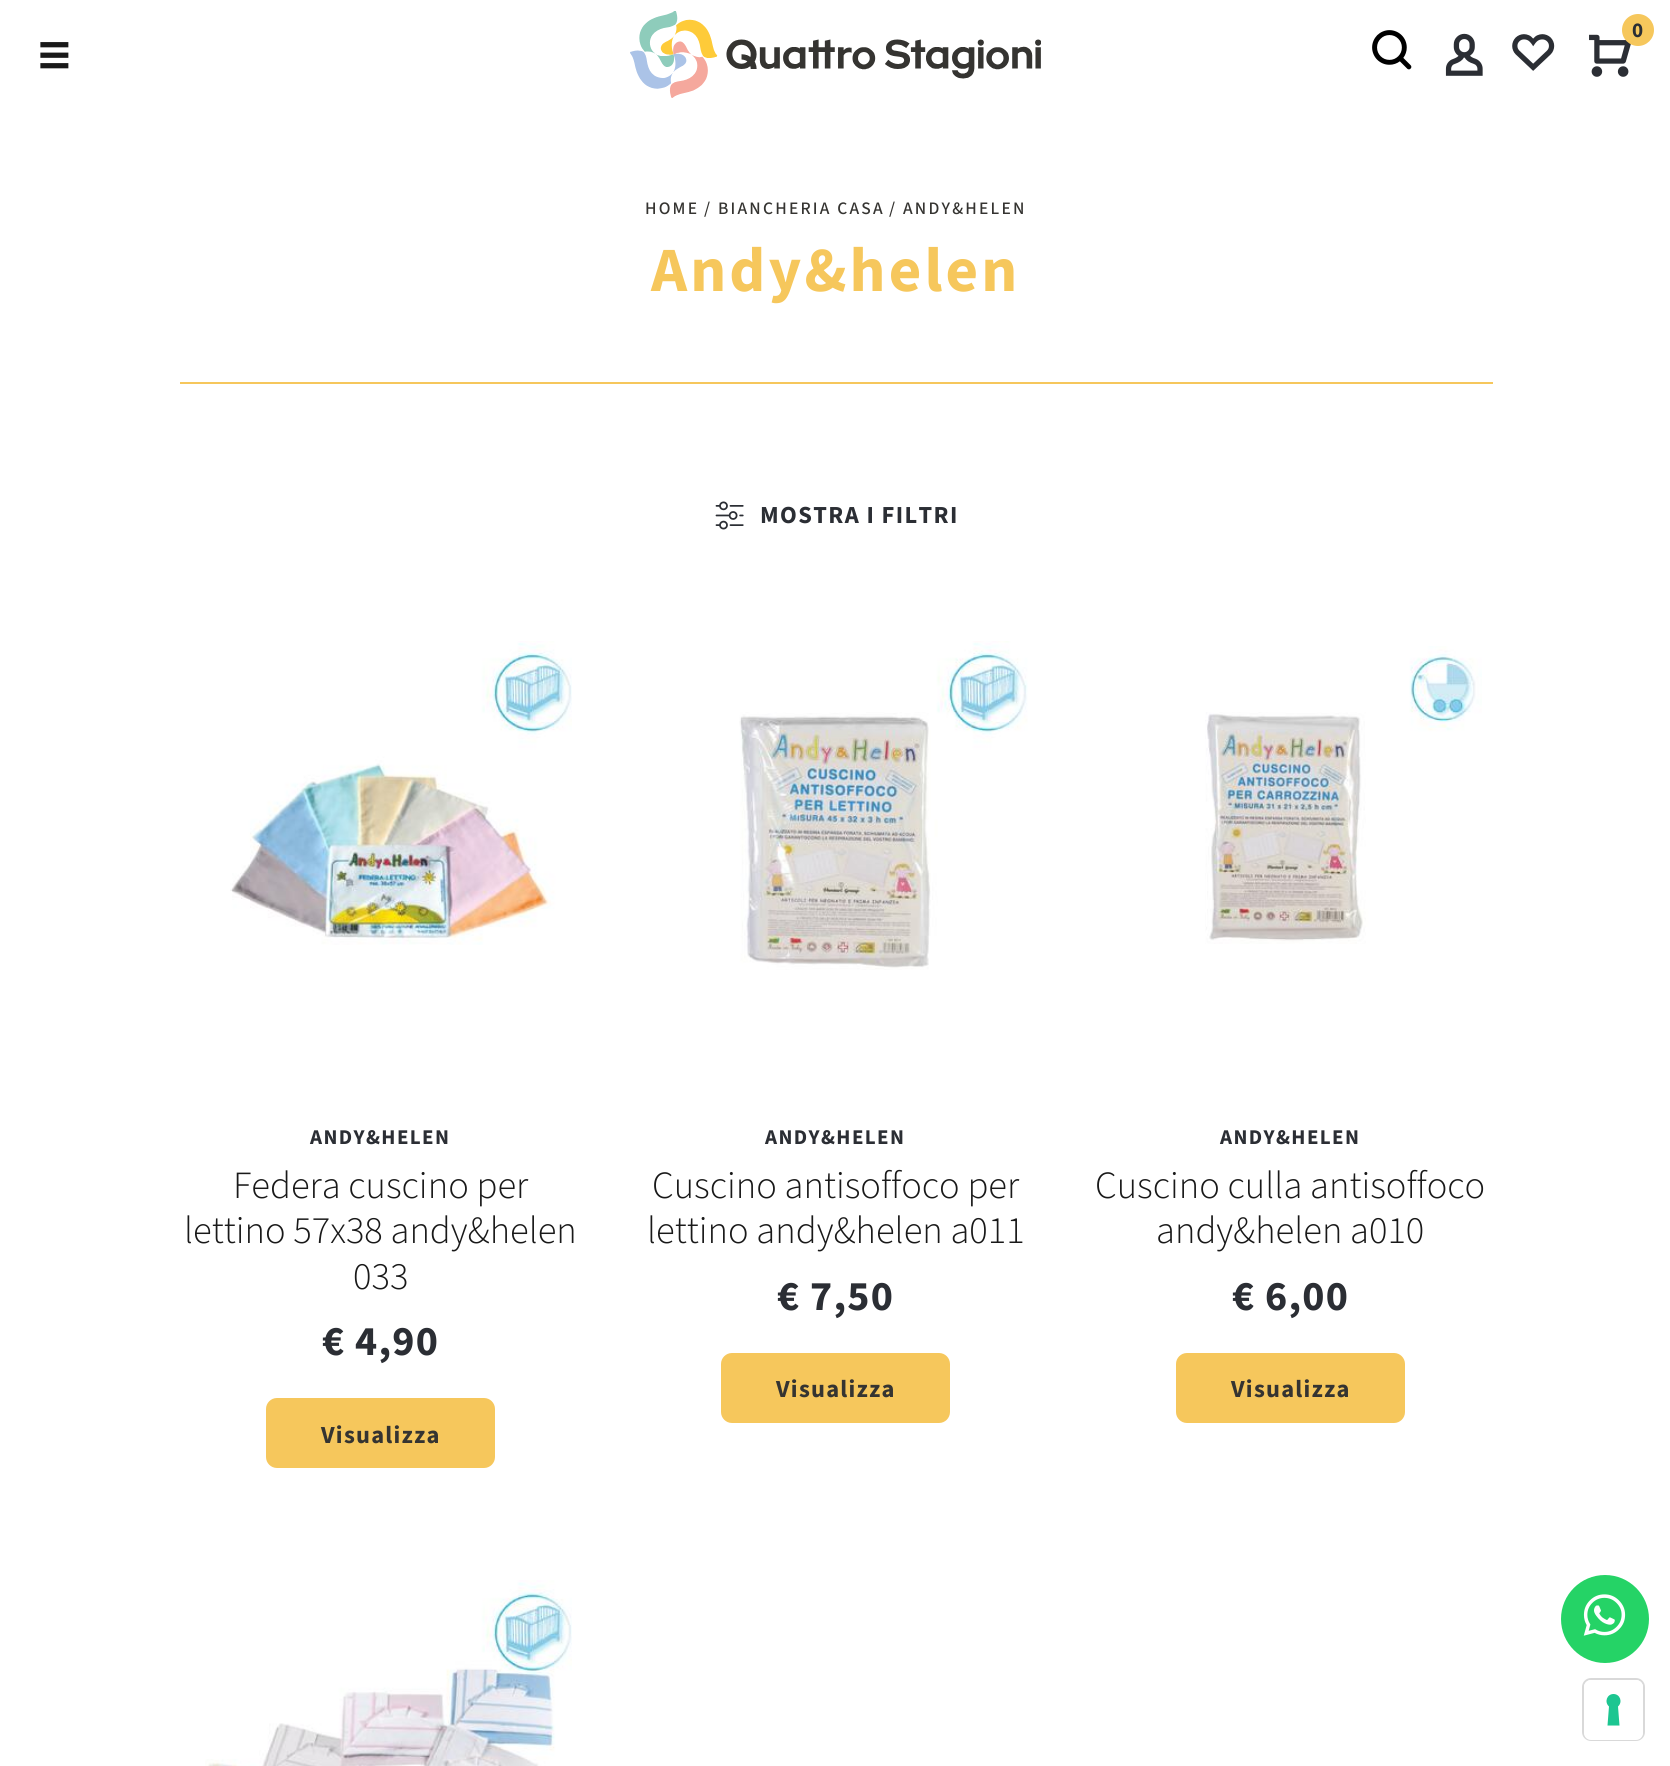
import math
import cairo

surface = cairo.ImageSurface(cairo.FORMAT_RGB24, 1670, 1766)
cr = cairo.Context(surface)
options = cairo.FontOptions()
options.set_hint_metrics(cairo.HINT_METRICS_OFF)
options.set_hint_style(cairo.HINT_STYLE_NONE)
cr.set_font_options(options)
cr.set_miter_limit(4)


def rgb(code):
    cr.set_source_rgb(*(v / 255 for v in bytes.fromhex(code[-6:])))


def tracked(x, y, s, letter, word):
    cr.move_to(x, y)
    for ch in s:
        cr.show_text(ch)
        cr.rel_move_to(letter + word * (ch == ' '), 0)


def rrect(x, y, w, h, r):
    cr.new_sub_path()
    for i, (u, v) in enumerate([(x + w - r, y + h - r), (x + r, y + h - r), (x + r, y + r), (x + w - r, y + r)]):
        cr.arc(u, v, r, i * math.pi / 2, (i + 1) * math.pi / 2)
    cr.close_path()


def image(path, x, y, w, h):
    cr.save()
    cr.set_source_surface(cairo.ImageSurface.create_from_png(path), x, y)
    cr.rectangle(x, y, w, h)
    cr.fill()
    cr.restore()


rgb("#ffffff")
cr.paint()
image("img/1.png", 630, 11, 411, 87)
image("img/2.png", 1372, 30, 40, 40)
image("img/3.png", 1445, 33, 38, 43)
image("img/4.png", 1512, 34, 43, 37)
image("img/5.png", 1589, 34, 42, 43)
rgb("#f6c75c")
cr.arc(1638, 30, 16, 0, 2 * math.pi)
cr.fill()
image("img/6.png", 40, 42, 29, 27)
cr.rectangle(180, 382, 1313, 2)
cr.fill()
image("img/7.png", 715, 501, 29, 29)
image("img/8.png", 230, 641, 342, 304)
rrect(266, 1398, 229, 70, 11)
cr.fill()
image("img/9.png", 739, 641, 289, 329)
rrect(721, 1353, 229, 70, 11)
cr.fill()
image("img/10.png", 1205, 646, 277, 298)
rrect(1176, 1353, 229, 70, 11)
cr.fill()
image("img/11.png", 205, 1580, 367, 186)
rgb("#25d366")
cr.arc(1605, 1619, 44, 0, 2 * math.pi)
cr.fill()
image("img/12.png", 1583, 1594, 43, 42)
rrect(1583, 1679, 61, 61, 8)
rgb("#d9d9d9")
cr.stroke()
rgb("#ffffff")
rrect(1584, 1680, 59, 60, 7)
cr.fill()
rgb("#1cc691")
cr.set_fill_rule(cairo.FILL_RULE_EVEN_ODD)
cr.new_path()
cr.move_to(1613.5, 1694)
cr.curve_to(1620, 1694, 1623, 1702, 1618, 1706.5)
cr.line_to(1619.5, 1725.5)
cr.line_to(1607.5, 1725.5)
cr.line_to(1609, 1706.5)
cr.curve_to(1604, 1702, 1607, 1694, 1613.5, 1694)
cr.close_path()
cr.fill()
cr.select_font_face("Source Sans 3", cairo.FONT_SLANT_NORMAL, cairo.FONT_WEIGHT_BOLD)
cr.set_font_size(21)
rgb("#2b2e34")
cr.move_to(1632, 37)
cr.show_text("0")
cr.select_font_face("Source Sans 3 Medium")
cr.set_font_size(17.5)
rgb("#353431")
for x, y, s in [
    (645, 214, "HOME"),
    (704, 214, "/ BIANCHERIA CASA"),
    (889, 214, "/ ANDY&HELEN"),
]:
    tracked(x, y, s, 2.2, 0)
cr.select_font_face("Source Sans 3", cairo.FONT_SLANT_NORMAL, cairo.FONT_WEIGHT_BOLD)
cr.set_font_size(63)
rgb("#f6c75c")
tracked(651, 291, "Andy&helen", 3.1, 0)
cr.set_font_size(24.5)
rgb("#2b2e34")
tracked(760, 523, "MOSTRA I FILTRI", 1.4, 0)
cr.set_font_size(21)
tracked(310, 1144, "ANDY&HELEN", 1.4, 0)
cr.select_font_face("Source Sans 3 Light")
cr.set_font_size(38.5)
rgb("#191919")
for x, y, s in [
    (233, 1198, "Federa cuscino per"),
    (184, 1243, "lettino 57x38 andy&helen"),
    (353, 1289, "033"),
]:
    cr.move_to(x, y)
    cr.show_text(s)
cr.select_font_face("Source Sans 3", cairo.FONT_SLANT_NORMAL, cairo.FONT_WEIGHT_BOLD)
cr.set_font_size(42)
rgb("#2b2e34")
tracked(322, 1355, "€ 4,90", 1.25, 0)
cr.set_font_size(24.5)
rgb("#353431")
tracked(321, 1443, "Visualizza", 1.25, 0)
cr.set_font_size(21)
rgb("#2b2e34")
tracked(765, 1144, "ANDY&HELEN", 1.4, 0)
cr.select_font_face("Source Sans 3 Light")
cr.set_font_size(38.5)
rgb("#191919")
cr.move_to(652, 1198)
cr.show_text("Cuscino antisoffoco per")
cr.move_to(647, 1243)
cr.show_text("lettino andy&helen a011")
cr.select_font_face("Source Sans 3", cairo.FONT_SLANT_NORMAL, cairo.FONT_WEIGHT_BOLD)
cr.set_font_size(42)
rgb("#2b2e34")
tracked(777, 1310, "€ 7,50", 1.25, 0)
cr.set_font_size(24.5)
rgb("#353431")
tracked(776, 1397, "Visualizza", 1.25, 0)
cr.set_font_size(21)
rgb("#2b2e34")
tracked(1220, 1144, "ANDY&HELEN", 1.4, 0)
cr.select_font_face("Source Sans 3 Light")
cr.set_font_size(38.5)
rgb("#191919")
cr.move_to(1095, 1198)
cr.show_text("Cuscino culla antisoffoco")
cr.move_to(1156, 1243)
cr.show_text("andy&helen a010")
cr.select_font_face("Source Sans 3", cairo.FONT_SLANT_NORMAL, cairo.FONT_WEIGHT_BOLD)
cr.set_font_size(42)
rgb("#2b2e34")
tracked(1232, 1310, "€ 6,00", 1.25, 0)
cr.set_font_size(24.5)
rgb("#353431")
tracked(1231, 1397, "Visualizza", 1.25, 0)
surface.write_to_png("page.png")
